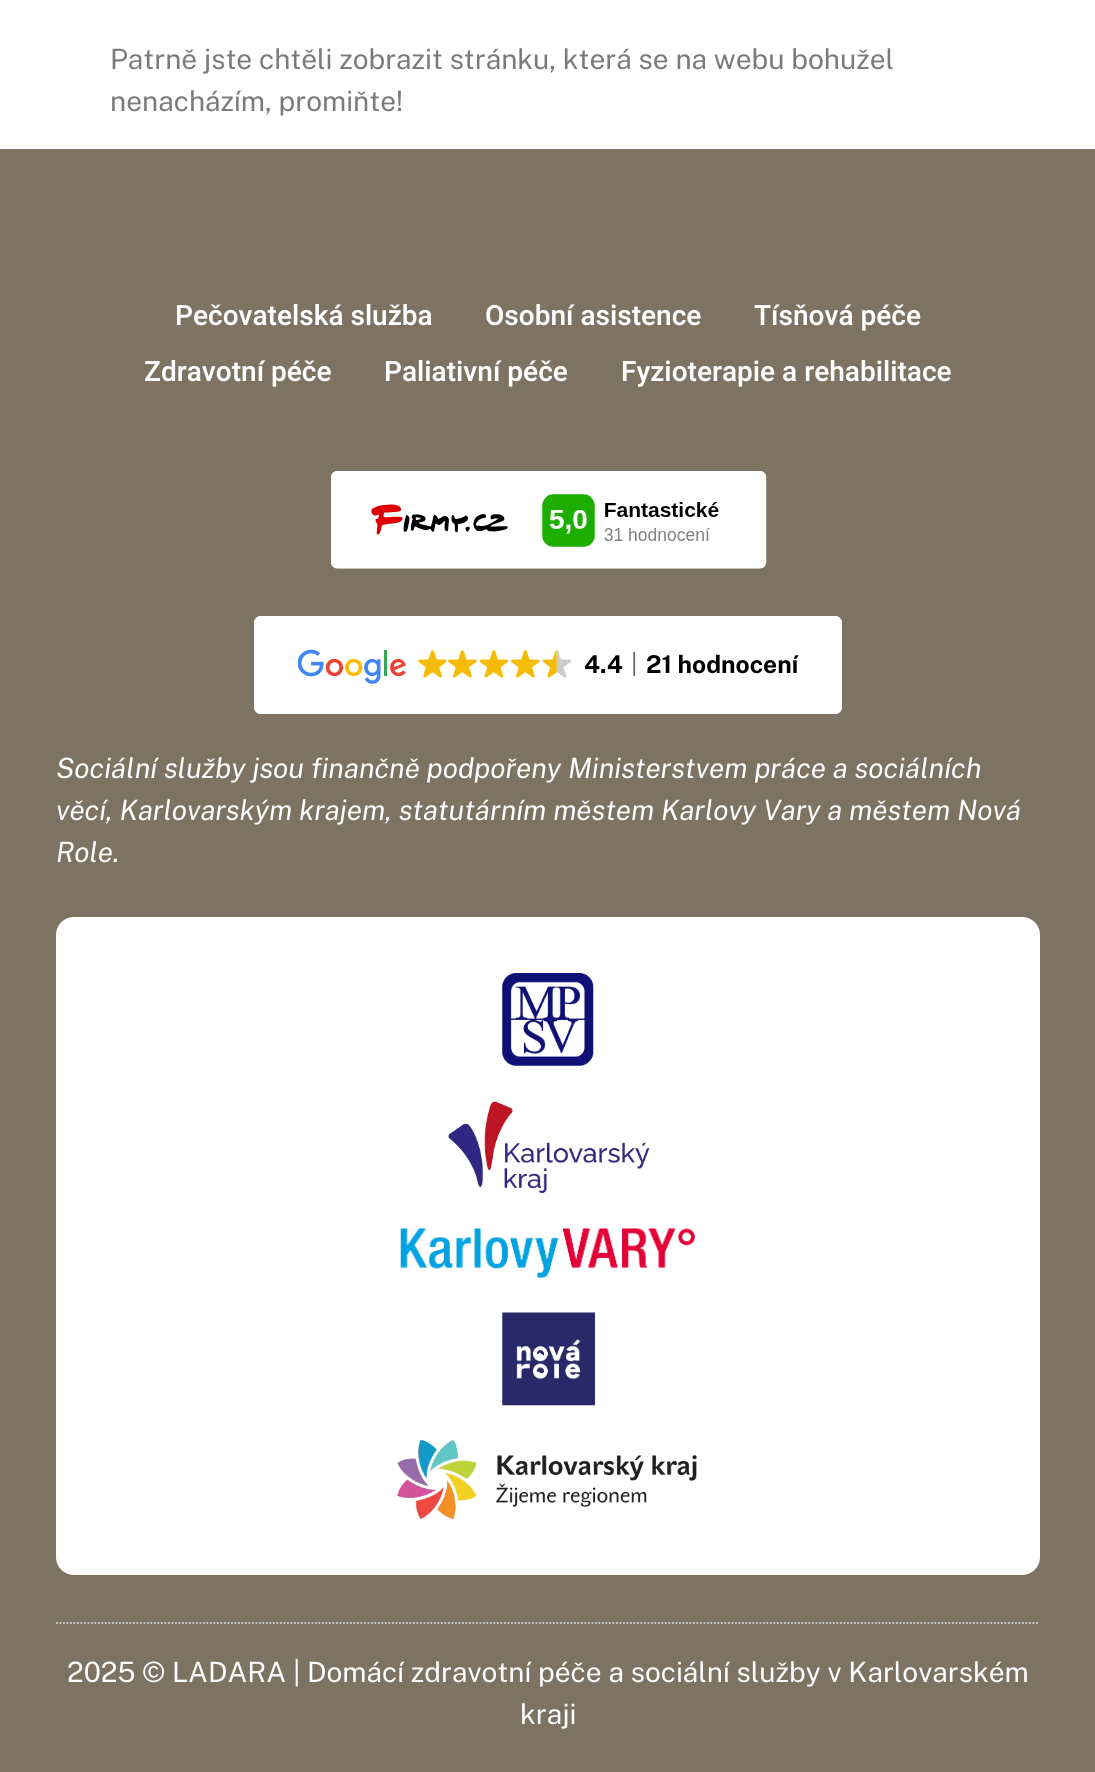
import math
import cairo

surface = cairo.ImageSurface(cairo.FORMAT_RGB24, 1095, 1772)
cr = cairo.Context(surface)
options = cairo.FontOptions()
options.set_hint_metrics(cairo.HINT_METRICS_OFF)
options.set_hint_style(cairo.HINT_STYLE_NONE)
cr.set_font_options(options)
cr.set_miter_limit(4)


def rgb(code):
    cr.set_source_rgb(*(v / 255 for v in bytes.fromhex(code[-6:])))


def rrect(x, y, w, h, r):
    cr.new_sub_path()
    for i, (u, v) in enumerate([(x + w - r, y + h - r), (x + r, y + h - r), (x + r, y + r), (x + w - r, y + r)]):
        cr.arc(u, v, r, i * math.pi / 2, (i + 1) * math.pi / 2)
    cr.close_path()


def image(path, x, y, w, h):
    cr.save()
    cr.set_source_surface(cairo.ImageSurface.create_from_png(path), x, y)
    cr.rectangle(x, y, w, h)
    cr.fill()
    cr.restore()


rgb("#ffffff")
cr.paint()
rgb("#7e7362")
cr.rectangle(0, 149, 1095, 1623)
cr.fill()
image("img/1.png", 331, 471, 436, 98)
rgb("#ffffff")
rrect(254, 616, 588, 98, 7)
cr.fill()
cr.set_fill_rule(cairo.FILL_RULE_EVEN_ODD)
cr.new_path()
cr.move_to(261, 616)
cr.line_to(835, 616)
cr.curve_to(839, 616, 842, 619, 842, 623)
cr.line_to(842, 707)
cr.curve_to(842, 711, 839, 714, 835, 714)
cr.line_to(261, 714)
cr.curve_to(257, 714, 254, 711, 254, 707)
cr.line_to(254, 623)
cr.curve_to(254, 619, 257, 616, 261, 616)
cr.close_path()
cr.move_to(261, 620)
cr.line_to(835, 620)
cr.curve_to(837, 620, 838, 621, 838, 623)
cr.line_to(838, 707)
cr.curve_to(838, 711, 837, 714, 835, 714)
cr.line_to(261, 714)
cr.curve_to(259, 714, 257, 711, 257, 707)
cr.line_to(257, 623)
cr.curve_to(257, 621, 259, 620, 261, 620)
cr.close_path()
cr.fill()
image("img/2.png", 298, 649, 108, 35)
image("img/3.png", 418, 650, 28, 28)
image("img/4.png", 448, 650, 29, 28)
image("img/5.png", 480, 650, 29, 28)
image("img/4.png", 511, 650, 29, 28)
image("img/6.png", 543, 650, 28, 28)
rrect(56, 917, 984, 658, 18)
cr.fill()
image("img/7.png", 502, 973, 92, 93)
image("img/8.png", 448, 1101, 202, 93)
image("img/9.png", 400, 1228, 295, 50)
image("img/10.png", 502, 1312, 93, 94)
image("img/11.png", 397, 1440, 300, 79)
cr.new_path()
cr.move_to(56, 1623)
cr.line_to(1039.5, 1623)
rgb("#d5d5d5")
cr.set_line_width(1.8)
cr.set_dash([1.75, 1.75])
cr.stroke()
cr.select_font_face("Public Sans")
cr.set_font_size(28)
rgb("#7a7a7a")
cr.move_to(110, 69)
cr.show_text("Patrně jste chtěli zobrazit stránku, která se na webu bohužel")
cr.move_to(110, 111)
cr.show_text("nenacházím, promiňte!")
cr.select_font_face("Heebo SemiBold")
rgb("#ffffff")
for x, y, s in [
    (175, 325, "Pečovatelská služba"),
    (485, 325, "Osobní asistence"),
    (754, 325, "Tísňová péče"),
    (144, 381, "Zdravotní péče"),
    (384, 381, "Paliativní péče"),
    (621, 381, "Fyzioterapie a rehabilitace"),
]:
    cr.move_to(x, y)
    cr.show_text(s)
cr.select_font_face("Public Sans", cairo.FONT_SLANT_NORMAL, cairo.FONT_WEIGHT_BOLD)
cr.set_font_size(24.5)
rgb("#000000")
cr.move_to(584, 673)
cr.show_text("4.4")
cr.select_font_face("Public Sans")
rgb("#666666")
cr.move_to(631, 672)
cr.show_text("|")
cr.select_font_face("Public Sans", cairo.FONT_SLANT_NORMAL, cairo.FONT_WEIGHT_BOLD)
rgb("#000000")
cr.move_to(646, 673)
cr.show_text("21 hodnocení")
cr.select_font_face("Public Sans", cairo.FONT_SLANT_ITALIC)
cr.set_font_size(28)
rgb("#ffffff")
for x, y, s in [
    (56, 778, "Sociální služby jsou finančně podpořeny Ministerstvem práce a sociálních"),
    (56, 820, "věcí, Karlovarským krajem, statutárním městem Karlovy Vary a městem Nová"),
    (56, 862, "Role."),
]:
    cr.move_to(x, y)
    cr.show_text(s)
cr.select_font_face("Public Sans")
cr.move_to(67, 1682)
cr.show_text("2025 © LADARA | Domácí zdravotní péče a sociální služby v Karlovarském")
cr.move_to(520, 1724)
cr.show_text("kraji")
surface.write_to_png("page.png")
